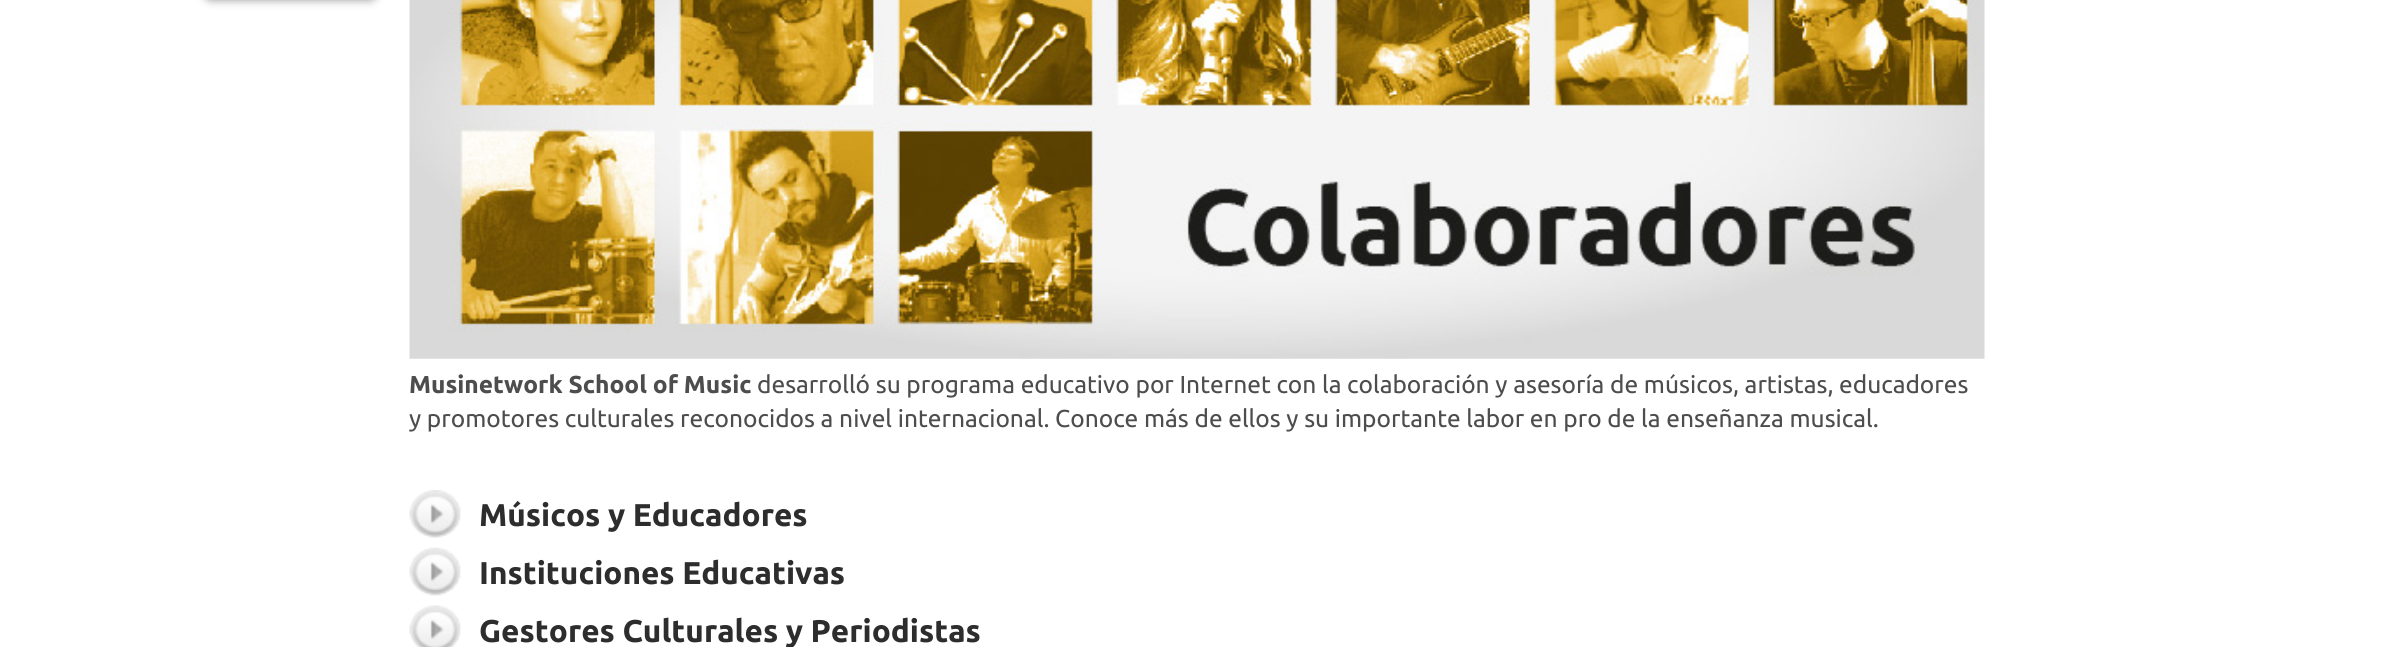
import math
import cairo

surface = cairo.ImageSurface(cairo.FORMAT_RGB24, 2391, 647)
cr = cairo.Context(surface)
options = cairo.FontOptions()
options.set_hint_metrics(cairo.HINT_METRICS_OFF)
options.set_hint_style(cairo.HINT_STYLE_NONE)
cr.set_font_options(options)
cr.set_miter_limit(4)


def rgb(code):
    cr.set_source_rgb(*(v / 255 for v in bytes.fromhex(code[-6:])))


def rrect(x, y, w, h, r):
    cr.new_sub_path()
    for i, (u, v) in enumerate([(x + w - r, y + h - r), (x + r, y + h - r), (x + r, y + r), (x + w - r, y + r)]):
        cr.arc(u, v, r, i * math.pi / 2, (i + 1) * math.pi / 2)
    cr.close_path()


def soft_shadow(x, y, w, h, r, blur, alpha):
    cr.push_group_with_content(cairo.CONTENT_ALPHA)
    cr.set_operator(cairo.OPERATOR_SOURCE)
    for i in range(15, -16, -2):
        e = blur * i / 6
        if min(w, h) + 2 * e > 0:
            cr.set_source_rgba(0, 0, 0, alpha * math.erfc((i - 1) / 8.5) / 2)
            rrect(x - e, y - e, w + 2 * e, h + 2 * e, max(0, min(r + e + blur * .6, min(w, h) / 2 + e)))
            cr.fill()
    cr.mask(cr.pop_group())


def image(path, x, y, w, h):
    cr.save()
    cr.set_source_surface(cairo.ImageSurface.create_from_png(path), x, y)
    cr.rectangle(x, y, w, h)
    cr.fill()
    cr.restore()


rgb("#ffffff")
cr.paint()
rgb("#999999")
soft_shadow(203, -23, 175, 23, 9, 4.5, 1)
image("img/1.png", 409, 0, 1576, 359)
image("img/2.png", 409, 490, 52, 48)
image("img/3.png", 409, 547, 52, 49)
image("img/4.png", 409, 605, 52, 42)
cr.select_font_face("Ubuntu", cairo.FONT_SLANT_NORMAL, cairo.FONT_WEIGHT_BOLD)
cr.set_font_size(24.5)
rgb("#4d4d4d")
cr.move_to(409, 393)
cr.show_text("Musinetwork School of Music")
cr.select_font_face("Ubuntu")
cr.move_to(757, 393)
cr.show_text("desarrolló su programa educativo por Internet con la colaboración y asesoría de músicos, artistas, educadores")
cr.move_to(409, 427)
cr.show_text("y promotores culturales reconocidos a nivel internacional. Conoce más de ellos y su importante labor en pro de la enseñanza musical.")
cr.select_font_face("Ubuntu", cairo.FONT_SLANT_NORMAL, cairo.FONT_WEIGHT_BOLD)
cr.set_font_size(31.5)
rgb("#2d2d2d")
for x, y, s in [
    (479, 526, "Músicos y Educadores"),
    (479, 584, "Instituciones Educativas"),
    (479, 642, "Gestores Culturales y Periodistas"),
]:
    cr.move_to(x, y)
    cr.show_text(s)
surface.write_to_png("page.png")
